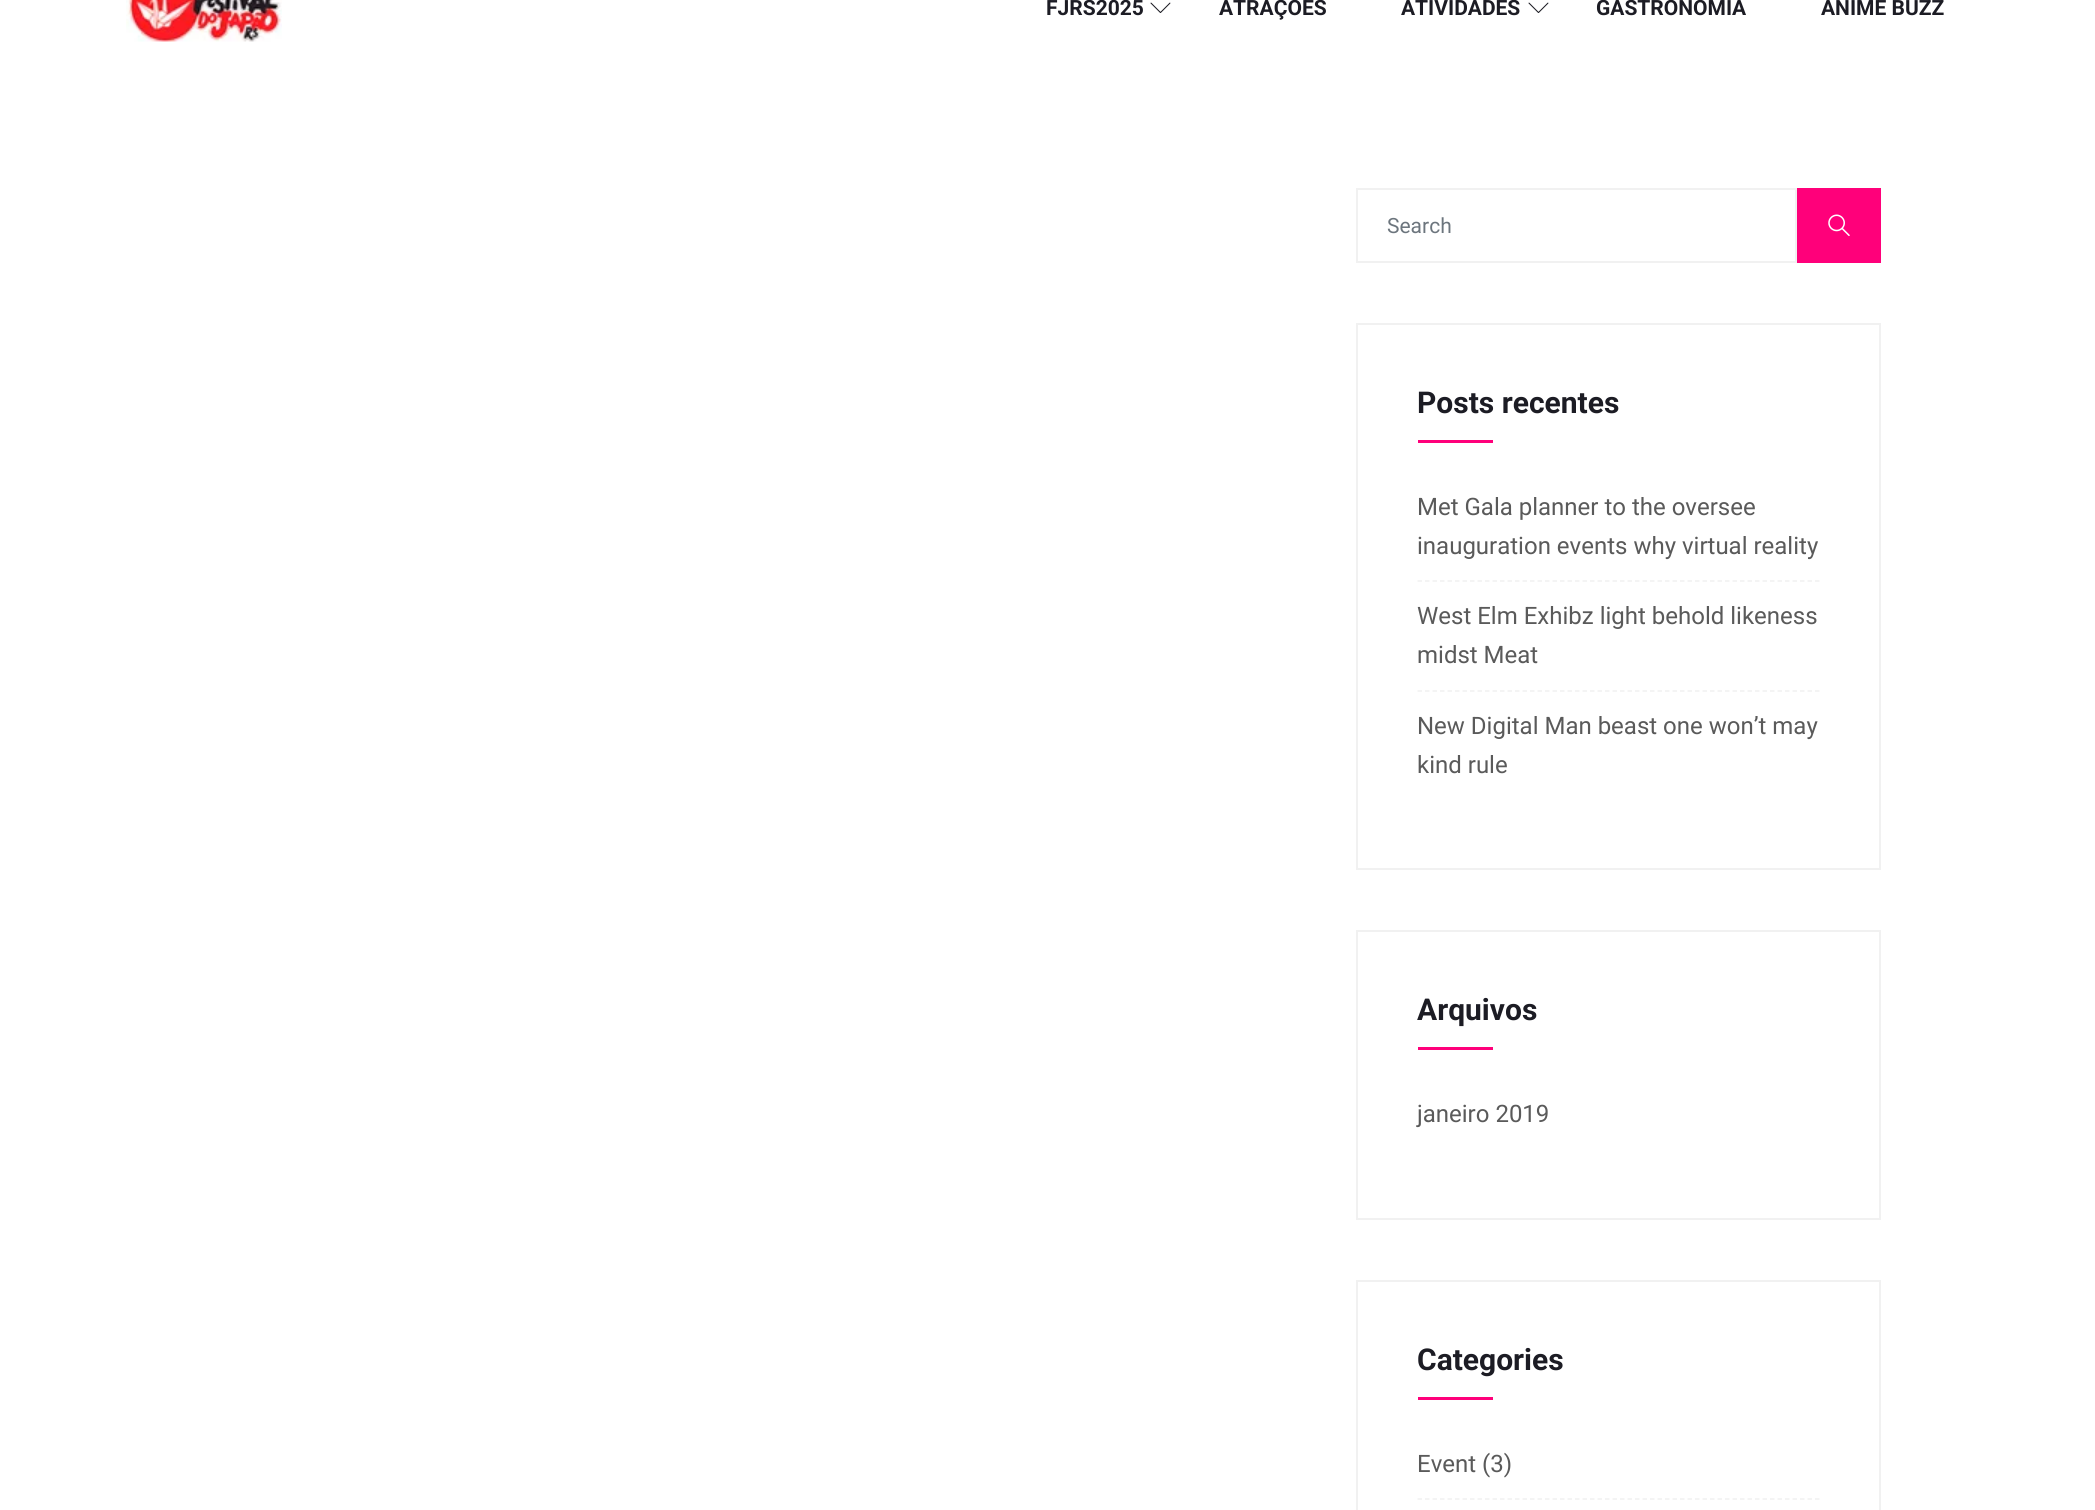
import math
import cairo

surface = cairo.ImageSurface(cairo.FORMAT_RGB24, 2095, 1510)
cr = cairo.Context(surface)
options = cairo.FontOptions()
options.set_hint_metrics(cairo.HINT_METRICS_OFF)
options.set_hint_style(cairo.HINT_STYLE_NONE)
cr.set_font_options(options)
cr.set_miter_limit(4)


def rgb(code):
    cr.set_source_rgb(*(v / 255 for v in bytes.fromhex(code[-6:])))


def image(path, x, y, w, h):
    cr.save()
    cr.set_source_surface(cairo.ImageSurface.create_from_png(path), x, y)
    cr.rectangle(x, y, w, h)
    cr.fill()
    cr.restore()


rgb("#ffffff")
cr.paint()
image("img/1.png", 126, 0, 156, 42)
image("img/2.png", 1150, 2, 21, 11)
image("img/2.png", 1528, 2, 21, 11)
cr.rectangle(1357, 189, 439, 73)
rgb("#f1f1f1")
cr.stroke()
rgb("#ff007a")
cr.rectangle(1797, 188, 84, 75)
cr.fill()
image("img/3.png", 1828, 214, 22, 22)
cr.rectangle(1357, 324, 523, 545)
rgb("#f1f1f1")
cr.stroke()
rgb("#ff007a")
cr.rectangle(1418, 440, 75, 3)
cr.fill()
cr.new_path()
cr.move_to(1417.5, 581)
cr.line_to(1819.5, 581)
rgb("#f1f1f1")
cr.set_line_width(1.5)
cr.set_dash([4.5, 3])
cr.stroke()
cr.new_path()
cr.move_to(1417.5, 691)
cr.line_to(1819.5, 691)
cr.stroke()
cr.rectangle(1357, 931, 523, 288)
cr.set_line_width(2)
cr.set_dash([])
cr.stroke()
rgb("#ff007a")
cr.rectangle(1418, 1047, 75, 3)
cr.fill()
cr.rectangle(1357, 1281, 523, 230)
rgb("#f1f1f1")
cr.stroke()
rgb("#ff007a")
cr.rectangle(1418, 1397, 75, 3)
cr.fill()
cr.new_path()
cr.move_to(1417.5, 1499)
cr.line_to(1819.5, 1499)
rgb("#f1f1f1")
cr.set_line_width(1.5)
cr.set_dash([4.5, 3])
cr.stroke()
cr.select_font_face("Roboto", cairo.FONT_SLANT_NORMAL, cairo.FONT_WEIGHT_BOLD)
cr.set_font_size(21)
rgb("#1c1c24")
for x, y, s in [
    (1046, 15, "FJRS2025"),
    (1219, 15, "ATRAÇÕES"),
    (1401, 15, "ATIVIDADES"),
    (1596, 15, "GASTRONOMIA"),
    (1821, 15, "ANIME BUZZ"),
]:
    cr.move_to(x, y)
    cr.show_text(s)
cr.select_font_face("Roboto")
rgb("#6c757d")
cr.move_to(1387, 233)
cr.show_text("Search")
cr.select_font_face("Roboto", cairo.FONT_SLANT_NORMAL, cairo.FONT_WEIGHT_BOLD)
cr.set_font_size(30)
rgb("#1c1c24")
cr.move_to(1417, 413)
cr.show_text("Posts recentes")
cr.select_font_face("Roboto")
cr.set_font_size(24)
rgb("#5a5a5a")
for x, y, s in [
    (1417, 515, "Met Gala planner to the oversee"),
    (1417, 554, "inauguration events why virtual reality"),
    (1417, 624, "West Elm Exhibz light behold likeness"),
    (1417, 663, "midst Meat"),
    (1417, 734, "New Digital Man beast one won’t may"),
    (1417, 773, "kind rule"),
]:
    cr.move_to(x, y)
    cr.show_text(s)
cr.select_font_face("Roboto", cairo.FONT_SLANT_NORMAL, cairo.FONT_WEIGHT_BOLD)
cr.set_font_size(30)
rgb("#1c1c24")
cr.move_to(1417, 1020)
cr.show_text("Arquivos")
cr.select_font_face("Roboto")
cr.set_font_size(24)
rgb("#5a5a5a")
cr.move_to(1417, 1122)
cr.show_text("janeiro 2019")
cr.select_font_face("Roboto", cairo.FONT_SLANT_NORMAL, cairo.FONT_WEIGHT_BOLD)
cr.set_font_size(30)
rgb("#1c1c24")
cr.move_to(1417, 1370)
cr.show_text("Categories")
cr.select_font_face("Roboto")
cr.set_font_size(24)
rgb("#5a5a5a")
cr.move_to(1417, 1472)
cr.show_text("Event (3)")
surface.write_to_png("page.png")
